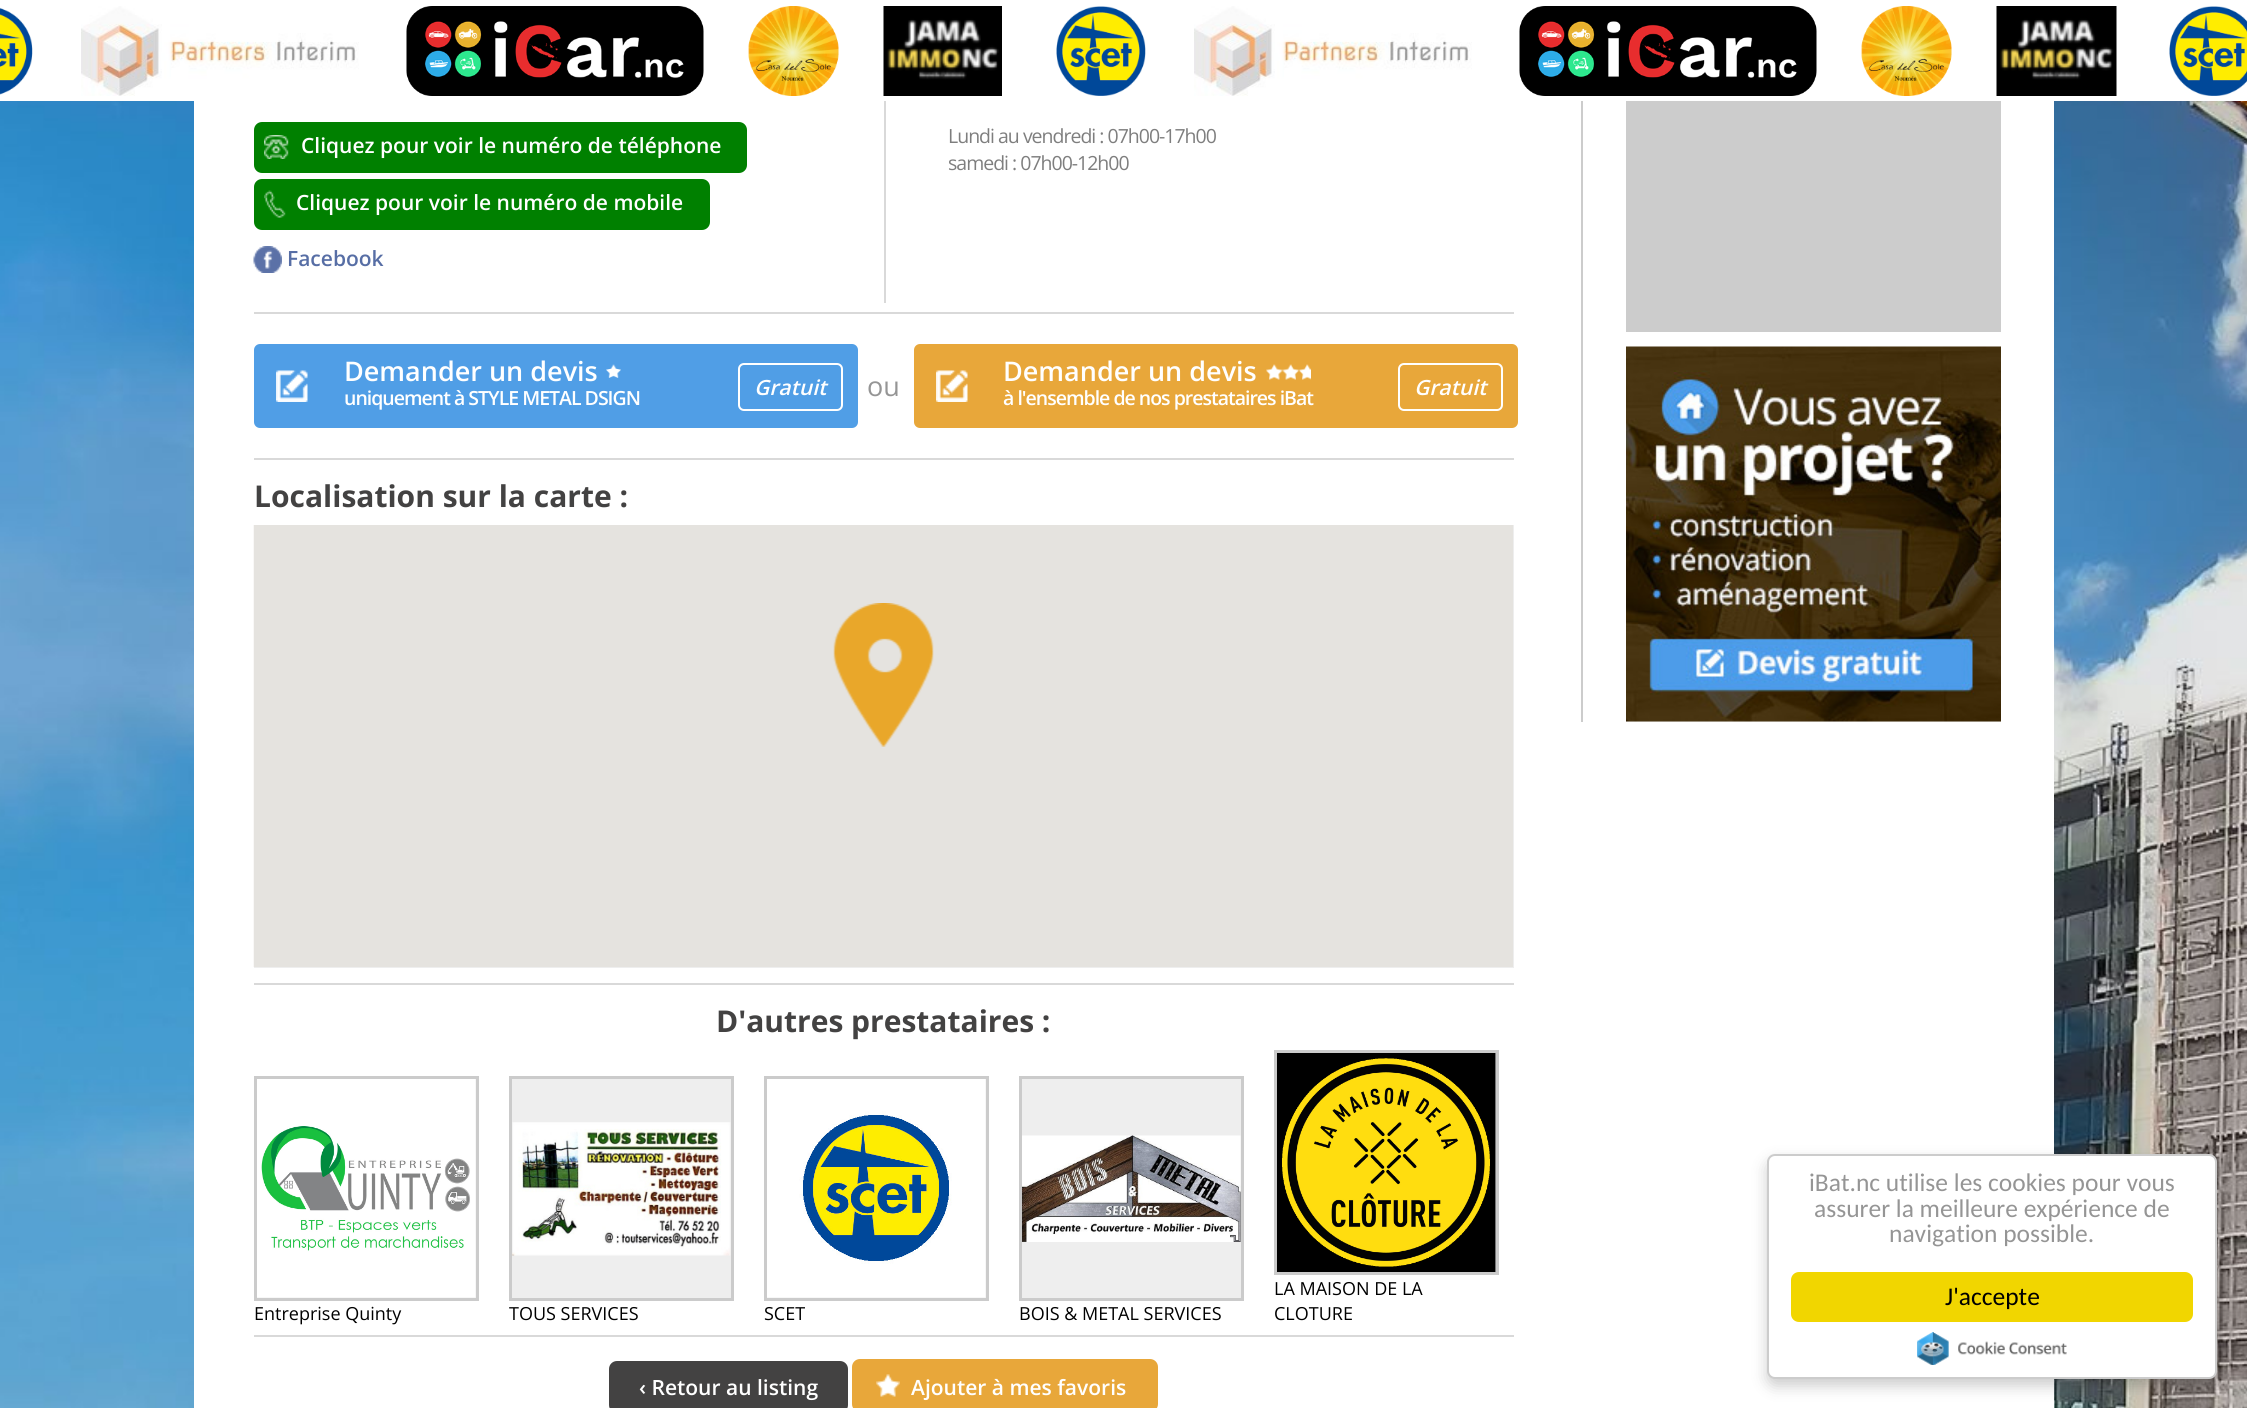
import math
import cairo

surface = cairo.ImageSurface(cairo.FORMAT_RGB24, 2247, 1408)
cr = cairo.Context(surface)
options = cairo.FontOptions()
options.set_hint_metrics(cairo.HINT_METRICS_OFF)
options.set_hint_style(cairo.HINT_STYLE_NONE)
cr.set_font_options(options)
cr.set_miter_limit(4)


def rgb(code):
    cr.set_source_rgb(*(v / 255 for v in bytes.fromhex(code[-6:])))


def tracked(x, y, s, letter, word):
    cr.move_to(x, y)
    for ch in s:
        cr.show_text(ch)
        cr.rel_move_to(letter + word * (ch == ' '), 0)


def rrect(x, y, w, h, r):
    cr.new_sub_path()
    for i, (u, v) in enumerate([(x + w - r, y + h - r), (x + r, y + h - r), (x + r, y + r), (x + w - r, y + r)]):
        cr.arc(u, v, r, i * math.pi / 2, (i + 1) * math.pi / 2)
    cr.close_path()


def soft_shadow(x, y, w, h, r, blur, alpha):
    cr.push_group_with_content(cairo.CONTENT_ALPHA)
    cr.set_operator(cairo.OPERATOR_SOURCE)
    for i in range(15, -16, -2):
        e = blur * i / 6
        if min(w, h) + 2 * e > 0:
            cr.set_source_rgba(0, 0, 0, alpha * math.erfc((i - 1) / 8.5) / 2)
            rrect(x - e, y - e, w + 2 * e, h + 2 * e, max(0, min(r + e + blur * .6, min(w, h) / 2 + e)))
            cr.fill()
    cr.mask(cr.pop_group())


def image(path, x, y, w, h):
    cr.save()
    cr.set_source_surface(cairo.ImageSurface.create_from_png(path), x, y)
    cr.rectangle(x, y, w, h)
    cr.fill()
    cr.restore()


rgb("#ffffff")
cr.paint()
image("img/1.png", 0, 101, 2247, 1307)
image("img/2.png", 0, 7, 33, 88)
image("img/3.png", 81, 6, 278, 90)
image("img/4.png", 406, 6, 298, 90)
image("img/5.png", 748, 6, 91, 90)
image("img/6.png", 883, 6, 119, 90)
image("img/7.png", 1056, 6, 90, 90)
image("img/3.png", 1194, 6, 278, 90)
image("img/8.png", 1519, 6, 298, 90)
image("img/5.png", 1861, 6, 91, 90)
image("img/9.png", 1996, 6, 121, 90)
image("img/10.png", 2169, 6, 78, 90)
rgb("#ffffff")
cr.rectangle(194, 101, 1860, 1307)
cr.fill()
rgb("#d9d9d9")
cr.rectangle(884, 101, 2, 202)
cr.fill()
rgb("#008000")
rrect(254, 122, 493, 51, 8)
cr.fill()
image("img/11.png", 264, 135, 25, 24)
rrect(254, 179, 456, 51, 8)
cr.fill()
image("img/12.png", 264, 190, 22, 28)
image("img/13.png", 253, 246, 29, 27)
rgb("#d9d9d9")
cr.rectangle(254, 312, 1260, 2)
cr.fill()
rgb("#509ee6")
rrect(254, 344, 604, 84, 6)
cr.fill()
image("img/14.png", 276, 370, 32, 32)
image("img/15.png", 606, 364, 15, 14)
rrect(739, 364, 103, 46, 5)
rgb("#ffffff")
cr.stroke()
rgb("#e8a73a")
rrect(914, 344, 604, 84, 6)
cr.fill()
image("img/16.png", 936, 370, 32, 32)
image("img/17.png", 1266, 364, 45, 16)
rrect(1399, 364, 103, 46, 5)
rgb("#ffffff")
cr.stroke()
rgb("#d9d9d9")
cr.rectangle(254, 458, 1260, 2)
cr.fill()
rgb("#eeeeee")
cr.rectangle(254, 525, 1260, 443)
cr.fill()
image("img/18.png", 253, 525, 1260, 442)
rgb("#d9d9d9")
cr.rectangle(254, 983, 1260, 2)
cr.fill()
rgb("#eeeeee")
cr.rectangle(257, 1079, 219, 219)
cr.fill()
image("img/19.png", 257, 1079, 219, 219)
cr.rectangle(255.5, 1077.5, 222, 222)
rgb("#cbcbcb")
cr.set_line_width(3)
cr.stroke()
rgb("#eeeeee")
cr.rectangle(512, 1079, 219, 219)
cr.fill()
image("img/20.png", 512, 1122, 219, 134)
cr.rectangle(510.5, 1077.5, 222, 222)
rgb("#cbcbcb")
cr.stroke()
rgb("#eeeeee")
cr.rectangle(767, 1079, 219, 219)
cr.fill()
image("img/21.png", 767, 1079, 219, 219)
cr.rectangle(765.5, 1077.5, 222, 222)
rgb("#cbcbcb")
cr.stroke()
rgb("#eeeeee")
cr.rectangle(1022, 1079, 219, 219)
cr.fill()
image("img/22.png", 1022, 1135, 219, 107)
cr.rectangle(1020.5, 1077.5, 222, 222)
rgb("#cbcbcb")
cr.stroke()
rgb("#eeeeee")
cr.rectangle(1495, 1053, 1, 219)
cr.fill()
image("img/23.png", 1277, 1053, 219, 219)
cr.rectangle(1275.5, 1051.5, 222, 222)
rgb("#cbcbcb")
cr.stroke()
rgb("#d9d9d9")
cr.rectangle(254, 1335, 1260, 2)
cr.fill()
rgb("#434242")
rrect(609, 1361, 239, 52, 8)
cr.fill()
rgb("#e8a73a")
rrect(852, 1359, 306, 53, 8)
cr.fill()
image("img/24.png", 876, 1374, 24, 23)
for x, y, w, h, color in [
    (1581, 101, 2, 621, "#cccccc"),
    (1626, 101, 375, 231, "#cccccc"),
    (1626, 721, 375, 1, "#eeeeee"),
]:
    rgb(color)
    cr.rectangle(x, y, w, h)
    cr.fill()
image("img/25.png", 1626, 346, 375, 376)
rgb("#000000")
soft_shadow(1767, 1161, 450, 225, 8, 7.5, 0.2)
rgb("#ffffff")
rrect(1768, 1155, 448, 223, 7)
cr.fill_preserve()
rgb("#cccccc")
cr.set_line_width(2)
cr.stroke()
rgb("#f1d600")
rrect(1791, 1272, 402, 50, 8)
cr.fill()
image("img/26.png", 1917, 1332, 150, 33)
cr.select_font_face("Open Sans SemiBold")
cr.set_font_size(21)
rgb("#ffffff")
cr.move_to(301, 153)
cr.show_text("Cliquez pour voir le numéro de téléphone")
cr.move_to(296, 210)
cr.show_text("Cliquez pour voir le numéro de mobile")
rgb("#576ea5")
cr.move_to(287, 266)
cr.show_text("Facebook")
cr.select_font_face("Open Sans")
cr.set_font_size(19.5)
rgb("#7e7e7e")
tracked(948, 143, "Lundi au vendredi : 07h00-17h00", -1, 0)
tracked(948, 170, "samedi : 07h00-12h00", -1, 0)
cr.select_font_face("Open Sans SemiBold")
cr.set_font_size(27)
rgb("#ffffff")
cr.move_to(344, 381)
cr.show_text("Demander un devis")
cr.select_font_face("Open Sans SemiBold", cairo.FONT_SLANT_ITALIC)
cr.set_font_size(21)
cr.move_to(754, 395)
cr.show_text("Gratuit")
cr.select_font_face("Open Sans SemiBold")
cr.set_font_size(19.5)
tracked(344, 405, "uniquement à STYLE METAL DSIGN", -1, 0)
cr.select_font_face("Open Sans")
cr.set_font_size(27)
rgb("#959595")
cr.move_to(867, 396)
cr.show_text("ou")
cr.select_font_face("Open Sans SemiBold")
rgb("#ffffff")
cr.move_to(1003, 381)
cr.show_text("Demander un devis")
cr.select_font_face("Open Sans SemiBold", cairo.FONT_SLANT_ITALIC)
cr.set_font_size(21)
cr.move_to(1414, 395)
cr.show_text("Gratuit")
cr.select_font_face("Open Sans SemiBold")
cr.set_font_size(19.5)
tracked(1003, 405, "à l'ensemble de nos prestataires iBat", -1, 0)
cr.select_font_face("Open Sans", cairo.FONT_SLANT_NORMAL, cairo.FONT_WEIGHT_BOLD)
cr.set_font_size(30)
rgb("#434242")
cr.move_to(254, 507)
cr.show_text("Localisation sur la carte :")
cr.move_to(716, 1032)
cr.show_text("D'autres prestataires :")
cr.select_font_face("Open Sans")
cr.set_font_size(18)
rgb("#000000")
for x, y, s in [
    (254, 1320, "Entreprise Quinty"),
    (509, 1320, "TOUS SERVICES"),
    (764, 1320, "SCET"),
    (1019, 1320, "BOIS & METAL SERVICES"),
    (1274, 1295, "LA MAISON DE LA"),
    (1274, 1320, "CLOTURE"),
]:
    cr.move_to(x, y)
    cr.show_text(s)
cr.select_font_face("Open Sans SemiBold")
cr.set_font_size(21)
rgb("#ffffff")
cr.move_to(639, 1395)
cr.show_text("‹ Retour au listing")
cr.move_to(911, 1395)
cr.show_text("Ajouter à mes favoris")
cr.select_font_face("Carlito")
cr.set_font_size(25.5)
rgb("#959595")
for x, y, s in [
    (1809, 1191, "iBat.nc utilise les cookies pour vous"),
    (1814, 1217, "assurer la meilleure expérience de"),
    (1889, 1242, "navigation possible."),
]:
    cr.move_to(x, y)
    cr.show_text(s)
rgb("#000000")
cr.move_to(1945, 1305)
cr.show_text("J'accepte")
surface.write_to_png("page.png")
